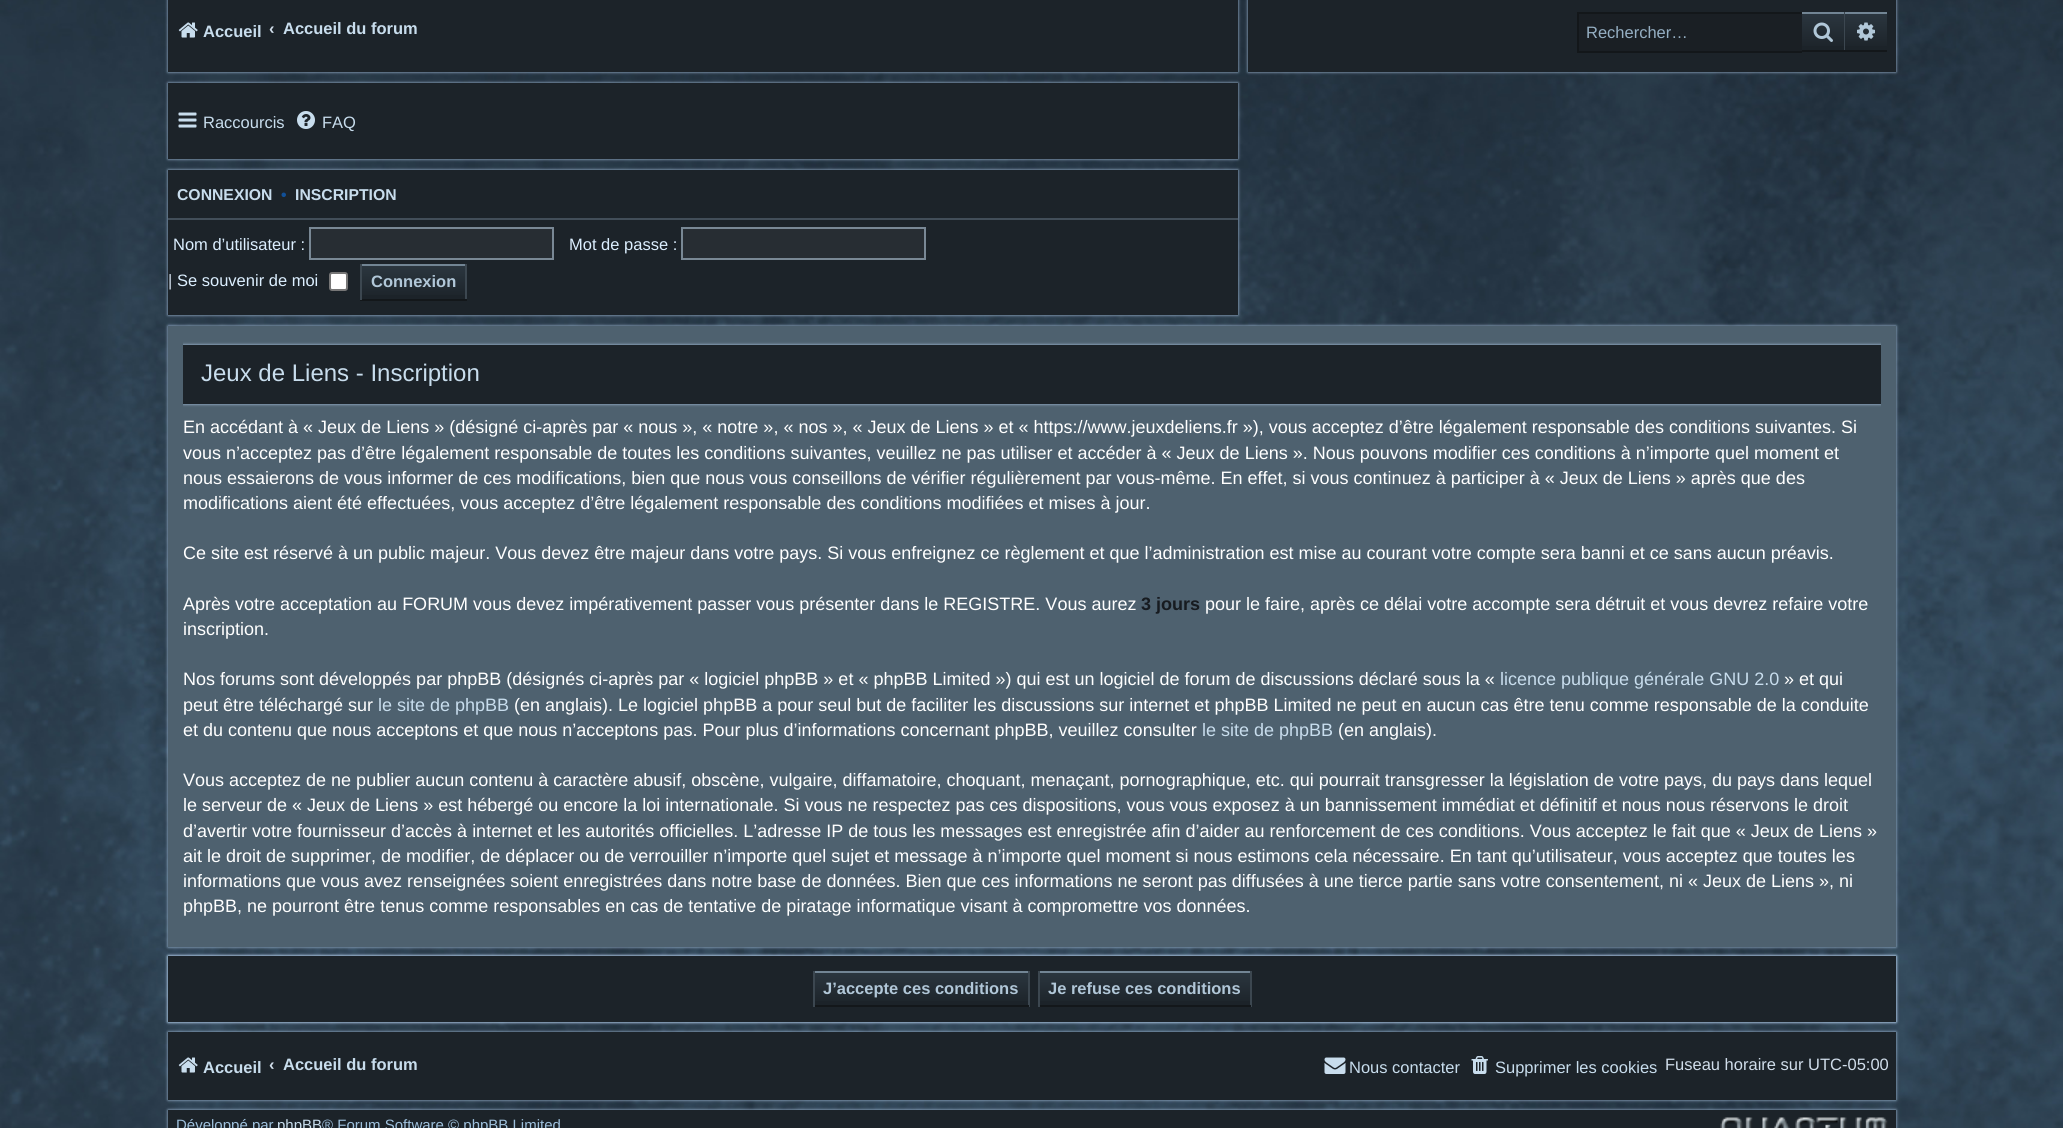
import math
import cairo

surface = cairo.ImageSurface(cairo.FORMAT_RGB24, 2063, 1128)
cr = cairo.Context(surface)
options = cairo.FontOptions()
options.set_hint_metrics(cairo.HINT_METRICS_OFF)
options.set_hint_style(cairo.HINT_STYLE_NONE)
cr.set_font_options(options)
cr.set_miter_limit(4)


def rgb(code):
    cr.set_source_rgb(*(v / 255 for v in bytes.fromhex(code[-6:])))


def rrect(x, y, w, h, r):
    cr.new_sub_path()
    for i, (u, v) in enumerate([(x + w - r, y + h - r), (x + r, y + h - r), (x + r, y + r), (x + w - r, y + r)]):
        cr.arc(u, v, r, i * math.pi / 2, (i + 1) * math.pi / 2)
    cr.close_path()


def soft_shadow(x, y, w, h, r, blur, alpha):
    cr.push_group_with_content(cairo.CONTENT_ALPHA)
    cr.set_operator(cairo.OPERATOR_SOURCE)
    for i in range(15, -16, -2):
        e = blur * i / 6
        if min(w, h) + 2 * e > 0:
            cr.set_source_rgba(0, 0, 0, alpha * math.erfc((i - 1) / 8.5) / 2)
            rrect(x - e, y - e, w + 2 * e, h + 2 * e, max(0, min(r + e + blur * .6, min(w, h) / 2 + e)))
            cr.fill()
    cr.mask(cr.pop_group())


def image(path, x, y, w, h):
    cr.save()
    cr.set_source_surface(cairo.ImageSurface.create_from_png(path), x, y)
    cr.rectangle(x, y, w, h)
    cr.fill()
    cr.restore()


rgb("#ffffff")
cr.paint()
image("img/1.png", 0, 0, 2063, 1128)
rgb("#afcbe7")
soft_shadow(168, -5, 1070, 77, 0, 1.5, 1)
rgb("#1c2329")
cr.rectangle(168, 0, 1070, 72)
cr.fill()
image("img/2.png", 178, 22, 20, 16)
rgb("#afcbe7")
soft_shadow(1248, -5, 648, 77, 0, 1.5, 1)
rgb("#1c2329")
cr.rectangle(1248, 0, 648, 72)
cr.fill()
gradient = cairo.LinearGradient(1823, 13, 1823, 50)
gradient.add_color_stop_rgba(0, 0.169, 0.212, 0.247, 1)
gradient.add_color_stop_rgba(1, 0.11, 0.137, 0.161, 1)
cr.set_source(gradient)
cr.rectangle(1802, 14, 42, 32)
cr.fill()
for x, y, w, h, color in [
    (1802, 12, 85, 2, "#728594"),
    (1844, 12, 1, 39, "#3c4750"),
    (1802, 50, 85, 2, "#13171a"),
]:
    rgb(color)
    cr.rectangle(x, y, w, h)
    cr.fill()
image("img/3.png", 1813, 22, 20, 20)
for x, y, w, h, color in [
    (1579, 14, 223, 37, "#1a1f24"),
    (1577, 12, 225, 2, "#13171a"),
    (1577, 51, 225, 2, "#13171a"),
    (1577, 12, 2, 41, "#13171a"),
]:
    rgb(color)
    cr.rectangle(x, y, w, h)
    cr.fill()
gradient = cairo.LinearGradient(1866, 13, 1866, 50)
gradient.add_color_stop_rgba(0, 0.169, 0.212, 0.247, 1)
gradient.add_color_stop_rgba(1, 0.11, 0.137, 0.161, 1)
cr.set_source(gradient)
cr.rectangle(1845, 14, 42, 32)
cr.fill()
image("img/4.png", 1857, 22, 18, 19)
rgb("#afcbe7")
soft_shadow(168, 83, 1070, 76, 0, 1.5, 1)
rgb("#1c2329")
cr.rectangle(168, 83, 1070, 76)
cr.fill()
image("img/5.png", 178, 112, 19, 16)
image("img/6.png", 297, 111, 18, 18)
rgb("#afcbe7")
soft_shadow(168, 170, 1070, 145, 0, 1.5, 1)
rgb("#1c2329")
cr.rectangle(168, 170, 1070, 145)
cr.fill()
rgb("#424e59")
cr.rectangle(168, 218, 1070, 2)
cr.fill()
rgb("#272d33")
cr.rectangle(310, 228, 243, 31)
cr.fill_preserve()
rgb("#798895")
cr.stroke()
rgb("#272d33")
cr.rectangle(682, 228, 243, 31)
cr.fill_preserve()
rgb("#798895")
cr.stroke()
rgb("#ffffff")
rrect(330, 273, 17, 17, 2)
cr.fill_preserve()
rgb("#767676")
cr.stroke()
gradient = cairo.LinearGradient(413, 266, 413, 299)
gradient.add_color_stop_rgba(0, 0.169, 0.212, 0.247, 1)
gradient.add_color_stop_rgba(1, 0.11, 0.137, 0.161, 1)
cr.set_source(gradient)
cr.rectangle(362, 266, 103, 29)
cr.fill()
for x, y, w, h, color in [
    (360, 264, 107, 2, "#728594"),
    (465, 264, 2, 36, "#3c4750"),
    (360, 299, 107, 2, "#13171a"),
    (360, 264, 2, 36, "#3c4750"),
]:
    rgb(color)
    cr.rectangle(x, y, w, h)
    cr.fill()
rgb("#afcbe7")
soft_shadow(168, 326, 1728, 621, 0, 1.5, 1)
rgb("#4e616f")
cr.rectangle(168, 326, 1728, 621)
cr.fill()
cr.save()
cr.rectangle(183, 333, 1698, 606)
cr.clip()
rgb("#afcbe7")
soft_shadow(183, 345, 1698, 59, 0, 1.5, 1)
cr.restore()
rgb("#1c2329")
cr.rectangle(183, 345, 1698, 59)
cr.fill()
rgb("#afcbe7")
soft_shadow(168, 956, 1728, 66, 0, 1.5, 1)
soft_shadow(168, 956, 1728, 66, 0, 1.5, 1)
rgb("#1c2329")
cr.rectangle(168, 956, 1728, 66)
cr.fill()
gradient = cairo.LinearGradient(921, 972, 921, 1005)
gradient.add_color_stop_rgba(0, 0.169, 0.212, 0.247, 1)
gradient.add_color_stop_rgba(1, 0.11, 0.137, 0.161, 1)
cr.set_source(gradient)
cr.rectangle(815, 973, 213, 28)
cr.fill()
for x, y, w, h, color in [
    (813, 971, 216, 2, "#728594"),
    (1028, 971, 2, 36, "#3c4750"),
    (813, 1005, 216, 2, "#13171a"),
    (813, 971, 2, 36, "#3c4750"),
]:
    rgb(color)
    cr.rectangle(x, y, w, h)
    cr.fill()
gradient = cairo.LinearGradient(1145, 972, 1145, 1005)
gradient.add_color_stop_rgba(0, 0.169, 0.212, 0.247, 1)
gradient.add_color_stop_rgba(1, 0.11, 0.137, 0.161, 1)
cr.set_source(gradient)
cr.rectangle(1040, 973, 210, 28)
cr.fill()
for x, y, w, h, color in [
    (1038, 971, 213, 2, "#728594"),
    (1250, 971, 2, 36, "#3c4750"),
    (1038, 1005, 213, 2, "#13171a"),
    (1038, 971, 2, 36, "#3c4750"),
]:
    rgb(color)
    cr.rectangle(x, y, w, h)
    cr.fill()
rgb("#afcbe7")
soft_shadow(168, 1032, 1728, 68, 0, 1.5, 1)
rgb("#1c2329")
cr.rectangle(168, 1032, 1728, 68)
cr.fill()
image("img/2.png", 178, 1057, 20, 16)
image("img/7.png", 1324, 1057, 22, 17)
image("img/8.png", 1471, 1056, 17, 18)
rgb("#afcbe7")
soft_shadow(168, 1110, 1728, 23, 0, 1.5, 1)
rgb("#1c2329")
cr.rectangle(168, 1110, 1728, 18)
cr.fill()
image("img/9.png", 1720, 1117, 168, 11)
cr.select_font_face("Liberation Sans", cairo.FONT_SLANT_NORMAL, cairo.FONT_WEIGHT_BOLD)
cr.set_font_size(16.5)
rgb("#c8dded")
cr.move_to(203, 37)
cr.show_text("Accueil")
rgb("#d0ddea")
cr.move_to(269, 34)
cr.show_text("‹")
rgb("#c8dded")
cr.move_to(283, 34)
cr.show_text("Accueil du forum")
cr.select_font_face("Liberation Sans")
rgb("#95afc3")
cr.move_to(1586, 38)
cr.show_text("Rechercher…")
rgb("#c8dded")
cr.move_to(203, 128)
cr.show_text("Raccourcis")
cr.move_to(322, 128)
cr.show_text("FAQ")
cr.select_font_face("Liberation Sans", cairo.FONT_SLANT_NORMAL, cairo.FONT_WEIGHT_BOLD)
cr.set_font_size(15.75)
cr.move_to(177, 200)
cr.show_text("CONNEXION")
rgb("#115098")
cr.move_to(281, 200)
cr.show_text("•")
rgb("#c8dded")
cr.move_to(295, 200)
cr.show_text("INSCRIPTION")
cr.select_font_face("Liberation Sans")
cr.set_font_size(16.5)
rgb("#dcefff")
cr.move_to(173, 250)
cr.show_text("Nom d’utilisateur :")
cr.move_to(569, 250)
cr.show_text("Mot de passe :")
rgb("#d0ddea")
cr.move_to(168, 286)
cr.show_text("|")
rgb("#dcefff")
cr.move_to(177, 286)
cr.show_text("Se souvenir de moi")
cr.select_font_face("Liberation Sans", cairo.FONT_SLANT_NORMAL, cairo.FONT_WEIGHT_BOLD)
rgb("#b1c7d8")
cr.move_to(371, 287)
cr.show_text("Connexion")
cr.select_font_face("Liberation Sans")
cr.set_font_size(24)
rgb("#c8dded")
cr.move_to(201, 381)
cr.show_text("Jeux de Liens - Inscription")
cr.set_font_size(18)
rgb("#ffffff")
for x, y, s in [
    (183, 433, "En accédant à « Jeux de Liens » (désigné ci-après par « nous », « notre », « nos », « Jeux de Liens » et « https://www.jeuxdeliens.fr »), vous acceptez d’être légalement responsable des conditions suivantes. Si"),
    (183, 459, "vous n’acceptez pas d’être légalement responsable de toutes les conditions suivantes, veuillez ne pas utiliser et accéder à « Jeux de Liens ». Nous pouvons modifier ces conditions à n’importe quel moment et"),
    (183, 484, "nous essaierons de vous informer de ces modifications, bien que nous vous conseillons de vérifier régulièrement par vous-même. En effet, si vous continuez à participer à « Jeux de Liens » après que des"),
    (183, 509, "modifications aient été effectuées, vous acceptez d’être légalement responsable des conditions modifiées et mises à jour."),
    (183, 559, "Ce site est réservé à un public majeur. Vous devez être majeur dans votre pays. Si vous enfreignez ce règlement et que l’administration est mise au courant votre compte sera banni et ce sans aucun préavis."),
    (183, 610, "Après votre acceptation au FORUM vous devez impérativement passer vous présenter dans le REGISTRE. Vous aurez"),
]:
    cr.move_to(x, y)
    cr.show_text(s)
cr.select_font_face("Liberation Sans", cairo.FONT_SLANT_NORMAL, cairo.FONT_WEIGHT_BOLD)
rgb("#171b20")
cr.move_to(1141, 610)
cr.show_text("3 jours")
cr.select_font_face("Liberation Sans")
rgb("#ffffff")
for x, y, s in [
    (1205, 610, "pour le faire, après ce délai votre accompte sera détruit et vous devrez refaire votre"),
    (183, 635, "inscription."),
    (183, 685, "Nos forums sont développés par phpBB (désignés ci-après par « logiciel phpBB » et « phpBB Limited ») qui est un logiciel de forum de discussions déclaré sous la «"),
]:
    cr.move_to(x, y)
    cr.show_text(s)
rgb("#c8dded")
cr.move_to(1500, 685)
cr.show_text("licence publique générale GNU 2.0")
rgb("#ffffff")
cr.move_to(1784, 685)
cr.show_text("» et qui")
cr.move_to(183, 711)
cr.show_text("peut être téléchargé sur")
rgb("#c8dded")
cr.move_to(378, 711)
cr.show_text("le site de phpBB")
rgb("#ffffff")
cr.move_to(514, 711)
cr.show_text("(en anglais). Le logiciel phpBB a pour seul but de faciliter les discussions sur internet et phpBB Limited ne peut en aucun cas être tenu comme responsable de la conduite")
cr.move_to(183, 736)
cr.show_text("et du contenu que nous acceptons et que nous n’acceptons pas. Pour plus d’informations concernant phpBB, veuillez consulter")
rgb("#c8dded")
cr.move_to(1202, 736)
cr.show_text("le site de phpBB")
rgb("#ffffff")
for x, y, s in [
    (1338, 736, "(en anglais)."),
    (183, 786, "Vous acceptez de ne publier aucun contenu à caractère abusif, obscène, vulgaire, diffamatoire, choquant, menaçant, pornographique, etc. qui pourrait transgresser la législation de votre pays, du pays dans lequel"),
    (183, 811, "le serveur de « Jeux de Liens » est hébergé ou encore la loi internationale. Si vous ne respectez pas ces dispositions, vous vous exposez à un bannissement immédiat et définitif et nous nous réservons le droit"),
    (183, 837, "d’avertir votre fournisseur d’accès à internet et les autorités officielles. L’adresse IP de tous les messages est enregistrée afin d’aider au renforcement de ces conditions. Vous acceptez le fait que « Jeux de Liens »"),
    (183, 862, "ait le droit de supprimer, de modifier, de déplacer ou de verrouiller n’importe quel sujet et message à n’importe quel moment si nous estimons cela nécessaire. En tant qu’utilisateur, vous acceptez que toutes les"),
    (183, 887, "informations que vous avez renseignées soient enregistrées dans notre base de données. Bien que ces informations ne seront pas diffusées à une tierce partie sans votre consentement, ni « Jeux de Liens », ni"),
    (183, 912, "phpBB, ne pourront être tenus comme responsables en cas de tentative de piratage informatique visant à compromettre vos données."),
]:
    cr.move_to(x, y)
    cr.show_text(s)
cr.select_font_face("Liberation Sans", cairo.FONT_SLANT_NORMAL, cairo.FONT_WEIGHT_BOLD)
cr.set_font_size(16.5)
rgb("#b1c7d8")
cr.move_to(823, 994)
cr.show_text("J’accepte ces conditions")
cr.move_to(1048, 994)
cr.show_text("Je refuse ces conditions")
rgb("#c8dded")
cr.move_to(203, 1073)
cr.show_text("Accueil")
rgb("#d0ddea")
cr.move_to(269, 1070)
cr.show_text("‹")
rgb("#c8dded")
cr.move_to(283, 1070)
cr.show_text("Accueil du forum")
cr.select_font_face("Liberation Sans")
cr.move_to(1349, 1073)
cr.show_text("Nous contacter")
cr.move_to(1495, 1073)
cr.show_text("Supprimer les cookies")
rgb("#d0ddea")
cr.move_to(1665, 1070)
cr.show_text("Fuseau horaire sur UTC-05:00")
cr.set_font_size(15)
rgb("#9fc1dd")
cr.move_to(176, 1130)
cr.show_text("Développé par")
rgb("#c8dded")
cr.move_to(277, 1130)
cr.show_text("phpBB")
rgb("#9fc1dd")
cr.move_to(322, 1130)
cr.show_text("® Forum Software © phpBB Limited")
surface.write_to_png("page.png")
